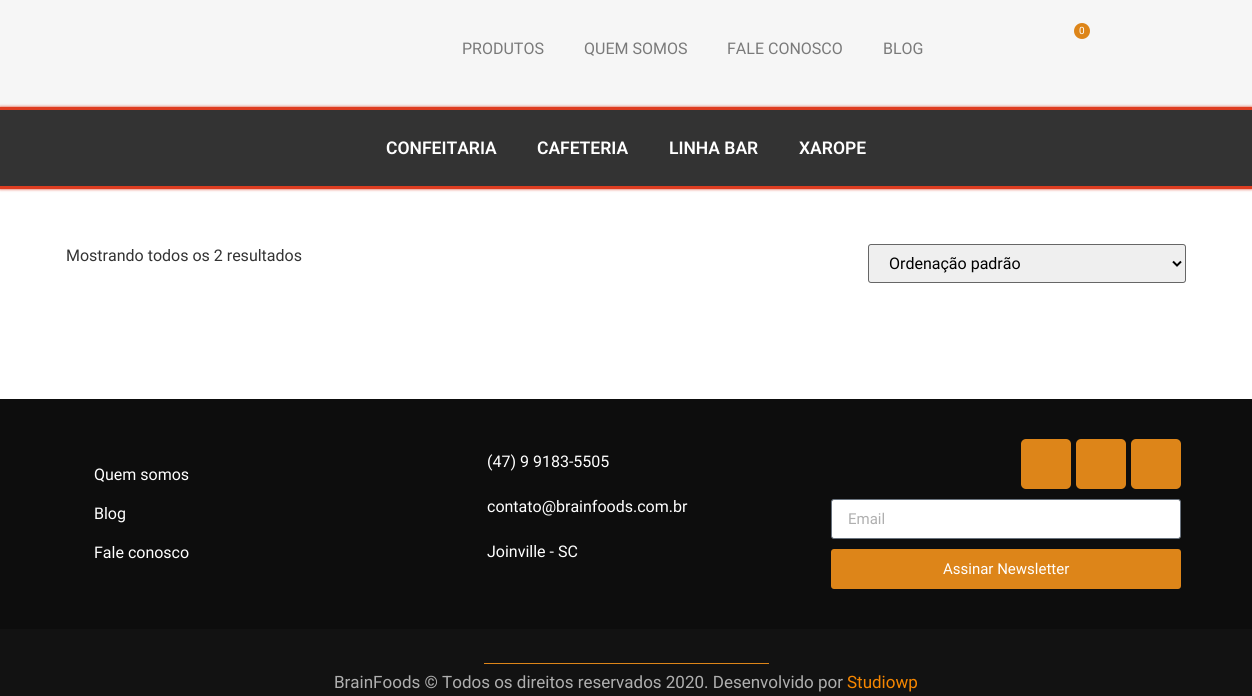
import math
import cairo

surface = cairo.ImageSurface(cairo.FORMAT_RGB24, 1252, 696)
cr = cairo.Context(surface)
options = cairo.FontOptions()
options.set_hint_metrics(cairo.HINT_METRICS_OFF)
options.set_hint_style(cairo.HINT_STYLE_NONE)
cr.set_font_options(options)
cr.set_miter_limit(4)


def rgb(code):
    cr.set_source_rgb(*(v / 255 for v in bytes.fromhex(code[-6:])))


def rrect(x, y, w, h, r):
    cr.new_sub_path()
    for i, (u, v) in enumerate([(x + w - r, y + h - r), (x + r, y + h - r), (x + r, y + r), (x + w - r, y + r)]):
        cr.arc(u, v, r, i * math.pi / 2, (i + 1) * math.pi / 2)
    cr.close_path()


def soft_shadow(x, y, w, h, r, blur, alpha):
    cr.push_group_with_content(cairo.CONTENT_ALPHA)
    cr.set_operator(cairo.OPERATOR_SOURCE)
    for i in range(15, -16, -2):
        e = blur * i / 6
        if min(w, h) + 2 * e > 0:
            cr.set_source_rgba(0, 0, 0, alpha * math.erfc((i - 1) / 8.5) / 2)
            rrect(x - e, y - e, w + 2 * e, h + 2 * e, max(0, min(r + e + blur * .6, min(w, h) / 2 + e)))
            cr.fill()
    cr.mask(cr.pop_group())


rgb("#ffffff")
cr.paint()
rgb("#f6f6f6")
cr.rectangle(0, 0, 1252, 107)
cr.fill()
rgb("#dd8519")
cr.arc(1082, 31, 8, 0, 2 * math.pi)
cr.fill()
rgb("#de3d21")
soft_shadow(0, 107, 1252, 82, 0, 1.5, 1)
for x, y, w, h, color in [
    (0, 110, 1252, 76, "#333333"),
    (0, 107, 1252, 3, "#de3d21"),
    (0, 186, 1252, 3, "#de3d21"),
]:
    rgb(color)
    cr.rectangle(x, y, w, h)
    cr.fill()
rgb("#efefef")
rrect(868.5, 244.5, 317, 38, 2.5)
cr.fill_preserve()
rgb("#666666")
cr.set_line_width(1)
cr.stroke()
cr.new_path()
cr.move_to(1173, 261.5)
cr.line_to(1177, 265.5)
cr.line_to(1181, 261.5)
rgb("#000000")
cr.set_line_width(2)
cr.stroke()
rgb("#0d0d0d")
cr.rectangle(0, 399, 1252, 230)
cr.fill()
rgb("#dd8519")
rrect(1021, 439, 50, 50, 5)
cr.fill()
rrect(1076, 439, 50, 50, 5)
cr.fill()
rrect(1131, 439, 50, 50, 5)
cr.fill()
rgb("#ffffff")
rrect(831.5, 499.5, 349, 39, 2.5)
cr.fill_preserve()
rgb("#69727d")
cr.set_line_width(1)
cr.stroke()
rgb("#dd8519")
rrect(831, 549, 350, 40, 3)
cr.fill()
rgb("#121212")
cr.rectangle(0, 629, 1252, 67)
cr.fill()
rgb("#dd8519")
cr.rectangle(484, 663, 285, 1)
cr.fill()
cr.select_font_face("Roboto")
cr.set_font_size(10)
rgb("#ffffff")
cr.move_to(1079, 34)
cr.show_text("0")
cr.set_font_size(16)
rgb("#7a7a7a")
for x, y, s in [
    (462, 54, "PRODUTOS"),
    (584, 54, "QUEM SOMOS"),
    (727, 54, "FALE CONOSCO"),
    (883, 54, "BLOG"),
]:
    cr.move_to(x, y)
    cr.show_text(s)
cr.select_font_face("Roboto SemiBold")
cr.set_font_size(17.5)
rgb("#ffffff")
for x, y, s in [
    (386, 154, "CONFEITARIA"),
    (537, 154, "CAFETERIA"),
    (669, 154, "LINHA BAR"),
    (799, 154, "XAROPE"),
]:
    cr.move_to(x, y)
    cr.show_text(s)
cr.select_font_face("Roboto")
cr.set_font_size(16)
rgb("#333333")
cr.move_to(66, 261)
cr.show_text("Mostrando todos os 2 resultados")
rgb("#000000")
cr.move_to(889, 269)
cr.show_text("Ordenação padrão")
rgb("#ffffff")
for x, y, s in [
    (94, 480, "Quem somos"),
    (94, 519, "Blog"),
    (94, 558, "Fale conosco"),
    (487, 467, "(47) 9 9183-5505"),
    (487, 512, "contato@brainfoods.com.br"),
    (487, 557, "Joinville - SC"),
]:
    cr.move_to(x, y)
    cr.show_text(s)
cr.set_font_size(15)
rgb("#afafaf")
cr.move_to(848, 524)
cr.show_text("Email")
rgb("#ffffff")
cr.move_to(943, 574)
cr.show_text("Assinar Newsletter")
cr.set_font_size(17)
rgb("#afafaf")
cr.move_to(334, 688)
cr.show_text("BrainFoods © Todos os direitos reservados 2020. Desenvolvido por")
rgb("#f68600")
cr.move_to(847, 688)
cr.show_text("Studiowp")
surface.write_to_png("page.png")
